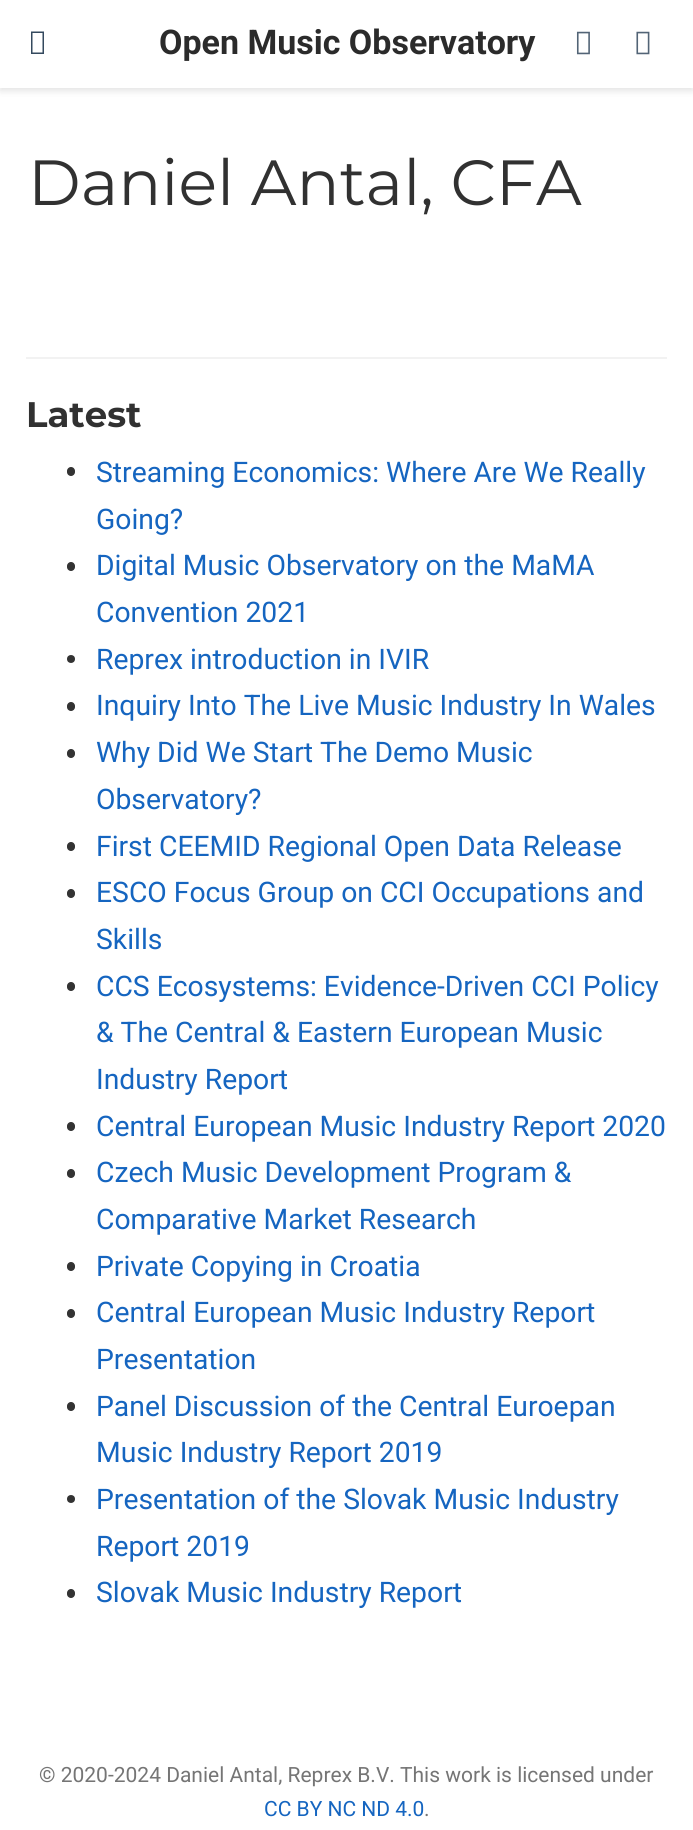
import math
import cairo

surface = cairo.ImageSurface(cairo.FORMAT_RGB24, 693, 1830)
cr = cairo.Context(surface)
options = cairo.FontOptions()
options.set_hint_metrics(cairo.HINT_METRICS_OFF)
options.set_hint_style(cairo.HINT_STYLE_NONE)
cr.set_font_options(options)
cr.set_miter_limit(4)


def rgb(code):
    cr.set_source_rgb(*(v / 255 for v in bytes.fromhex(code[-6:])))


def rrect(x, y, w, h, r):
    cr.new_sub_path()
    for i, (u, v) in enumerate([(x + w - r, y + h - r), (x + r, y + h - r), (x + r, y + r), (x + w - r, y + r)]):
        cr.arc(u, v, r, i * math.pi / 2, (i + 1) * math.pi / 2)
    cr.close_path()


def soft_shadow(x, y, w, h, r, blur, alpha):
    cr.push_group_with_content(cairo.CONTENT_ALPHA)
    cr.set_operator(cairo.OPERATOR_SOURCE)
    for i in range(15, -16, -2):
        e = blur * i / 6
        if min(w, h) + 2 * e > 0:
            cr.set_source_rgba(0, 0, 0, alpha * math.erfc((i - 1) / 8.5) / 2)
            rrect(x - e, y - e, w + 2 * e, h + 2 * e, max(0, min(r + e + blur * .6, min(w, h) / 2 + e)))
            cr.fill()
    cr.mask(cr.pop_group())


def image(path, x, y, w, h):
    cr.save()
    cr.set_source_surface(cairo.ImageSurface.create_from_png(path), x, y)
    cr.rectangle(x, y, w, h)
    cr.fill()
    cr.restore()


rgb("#ffffff")
cr.paint()
rgb("#000000")
soft_shadow(0, 4, 693, 87, 0, 3.5, 0.11)
rgb("#ffffff")
cr.rectangle(0, 0, 693, 88)
cr.fill()
rgb("#34495e")
cr.new_path()
cr.move_to(31, 54)
cr.line_to(31, 31.5)
cr.line_to(44, 31.5)
cr.line_to(44, 54)
cr.close_path()
cr.move_to(32.5, 52.5)
cr.line_to(42.5, 52.5)
cr.line_to(42.5, 33)
cr.line_to(32.5, 33)
cr.close_path()
cr.fill()
image("img/1.png", 576, 31, 14, 24)
image("img/2.png", 636, 31, 14, 24)
rgb("#f2f2f2")
cr.rectangle(26, 357, 641, 2)
cr.fill()
rgb("#333333")
rrect(67, 467, 8, 9, 4)
cr.fill()
rrect(67, 562, 8, 9, 4)
cr.fill()
cr.arc(71, 659, 4, 0, 2 * math.pi)
cr.fill()
rrect(67, 702, 8, 9, 4)
cr.fill()
rrect(67, 749, 8, 9, 4)
cr.fill()
rrect(67, 842, 8, 9, 4)
cr.fill()
rrect(67, 889, 8, 9, 4)
cr.fill()
rrect(67, 982, 8, 9, 4)
cr.fill()
rrect(67, 1122, 8, 9, 4)
cr.fill()
rrect(67, 1169, 8, 9, 4)
cr.fill()
rrect(67, 1262, 8, 9, 4)
cr.fill()
rrect(67, 1309, 8, 9, 4)
cr.fill()
rrect(67, 1402, 8, 9, 4)
cr.fill()
cr.arc(71, 1499, 4, 0, 2 * math.pi)
cr.fill()
rrect(67, 1589, 8, 9, 4)
cr.fill()
cr.select_font_face("Roboto", cairo.FONT_SLANT_NORMAL, cairo.FONT_WEIGHT_BOLD)
cr.set_font_size(34)
rgb("#2b2b2b")
cr.move_to(159, 54)
cr.show_text("Open Music Observatory")
cr.select_font_face("Montserrat")
cr.set_font_size(63.75)
rgb("#313131")
cr.move_to(28, 205)
cr.show_text("Daniel Antal, CFA")
cr.select_font_face("Montserrat", cairo.FONT_SLANT_NORMAL, cairo.FONT_WEIGHT_BOLD)
cr.set_font_size(35.5)
cr.move_to(26, 427)
cr.show_text("Latest")
cr.select_font_face("Roboto")
cr.set_font_size(28.3)
rgb("#1565c0")
for x, y, s in [
    (96, 482, "Streaming Economics: Where Are We Really"),
    (96, 529, "Going?"),
    (96, 575, "Digital Music Observatory on the MaMA"),
    (96, 622, "Convention 2021"),
    (96, 669, "Reprex introduction in IVIR"),
    (96, 715, "Inquiry Into The Live Music Industry In Wales"),
    (96, 762, "Why Did We Start The Demo Music"),
    (96, 809, "Observatory?"),
    (96, 856, "First CEEMID Regional Open Data Release"),
    (96, 902, "ESCO Focus Group on CCI Occupations and"),
    (96, 949, "Skills"),
    (96, 996, "CCS Ecosystems: Evidence-Driven CCI Policy"),
    (96, 1042, "& The Central & Eastern European Music"),
    (96, 1089, "Industry Report"),
    (96, 1136, "Central European Music Industry Report 2020"),
    (96, 1182, "Czech Music Development Program &"),
    (96, 1229, "Comparative Market Research"),
    (96, 1276, "Private Copying in Croatia"),
    (96, 1322, "Central European Music Industry Report"),
    (96, 1369, "Presentation"),
    (96, 1416, "Panel Discussion of the Central Euroepan"),
    (96, 1462, "Music Industry Report 2019"),
    (96, 1509, "Presentation of the Slovak Music Industry"),
    (96, 1556, "Report 2019"),
    (96, 1602, "Slovak Music Industry Report"),
]:
    cr.move_to(x, y)
    cr.show_text(s)
cr.set_font_size(21)
rgb("#757575")
cr.move_to(39, 1782)
cr.show_text("© 2020-2024 Daniel Antal, Reprex B.V. This work is licensed under")
rgb("#1565c0")
cr.move_to(264, 1816)
cr.show_text("CC BY NC ND 4.0")
rgb("#757575")
cr.move_to(424, 1816)
cr.show_text(".")
surface.write_to_png("page.png")
